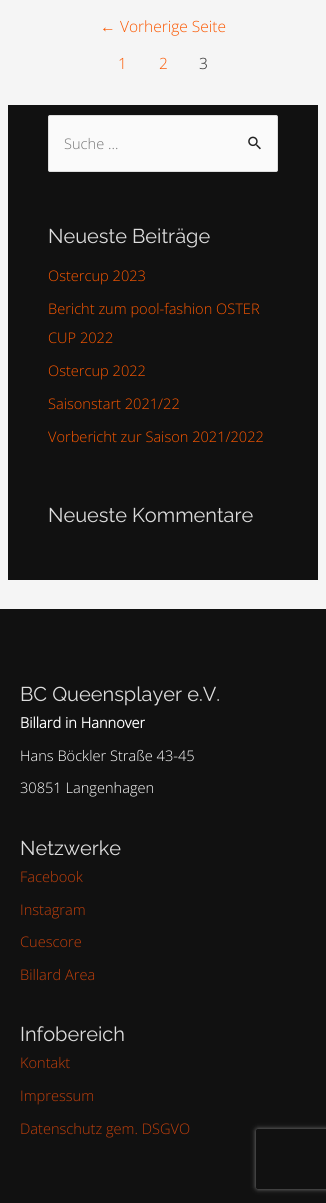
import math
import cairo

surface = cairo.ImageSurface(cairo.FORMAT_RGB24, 326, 1203)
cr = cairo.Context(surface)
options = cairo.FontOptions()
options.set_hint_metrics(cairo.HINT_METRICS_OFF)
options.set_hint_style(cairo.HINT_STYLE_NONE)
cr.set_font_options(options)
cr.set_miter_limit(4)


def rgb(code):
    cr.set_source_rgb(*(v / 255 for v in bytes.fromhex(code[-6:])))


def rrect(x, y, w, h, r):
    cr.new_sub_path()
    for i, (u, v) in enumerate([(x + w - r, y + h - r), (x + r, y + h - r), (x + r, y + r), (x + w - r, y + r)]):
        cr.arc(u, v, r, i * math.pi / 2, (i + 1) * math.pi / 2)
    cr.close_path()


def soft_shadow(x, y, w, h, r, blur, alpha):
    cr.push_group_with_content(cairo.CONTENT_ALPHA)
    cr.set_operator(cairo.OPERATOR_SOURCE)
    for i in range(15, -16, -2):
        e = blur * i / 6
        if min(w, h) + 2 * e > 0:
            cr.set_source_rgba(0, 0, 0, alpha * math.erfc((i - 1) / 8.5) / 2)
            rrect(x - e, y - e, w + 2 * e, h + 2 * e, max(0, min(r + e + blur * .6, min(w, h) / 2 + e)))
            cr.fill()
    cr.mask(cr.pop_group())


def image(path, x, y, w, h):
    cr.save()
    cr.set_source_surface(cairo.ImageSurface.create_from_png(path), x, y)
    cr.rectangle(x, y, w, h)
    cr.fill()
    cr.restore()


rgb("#f5f5f5")
cr.paint()
rgb("#111111")
cr.rectangle(8, 105, 310, 475)
cr.fill()
rgb("#fafafa")
rrect(48.5, 115.5, 229, 56, 1.5)
cr.fill_preserve()
rgb("#dddddd")
cr.set_line_width(1)
cr.stroke()
image("img/1.png", 248, 136, 13, 14)
rgb("#111111")
cr.rectangle(0, 609, 326, 594)
cr.fill()
cr.save()
cr.set_fill_rule(cairo.FILL_RULE_EVEN_ODD)
cr.new_path()
cr.move_to(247, 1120)
cr.line_to(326, 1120)
cr.line_to(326, 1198)
cr.line_to(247, 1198)
cr.close_path()
cr.move_to(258, 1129)
cr.line_to(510, 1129)
cr.curve_to(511, 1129, 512, 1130, 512, 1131)
cr.line_to(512, 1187)
cr.curve_to(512, 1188, 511, 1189, 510, 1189)
cr.line_to(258, 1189)
cr.curve_to(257, 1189, 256, 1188, 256, 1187)
cr.line_to(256, 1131)
cr.curve_to(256, 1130, 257, 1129, 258, 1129)
cr.close_path()
cr.clip()
rgb("#808080")
soft_shadow(256, 1129, 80, 60, 2, 2.5, 1)
cr.restore()
cr.select_font_face("Liberation Sans")
cr.set_font_size(15.5)
rgb("#fb5700")
cr.move_to(100, 32)
cr.show_text("←")
cr.select_font_face("Open Sans Light")
for x, y, s in [
    (120, 32, "Vorherige Seite"),
    (118, 69, "1"),
    (159, 69, "2"),
]:
    cr.move_to(x, y)
    cr.show_text(s)
rgb("#222222")
cr.move_to(199, 69)
cr.show_text("3")
cr.set_font_size(14.6)
rgb("#757575")
cr.move_to(64, 149)
cr.show_text("Suche …")
cr.select_font_face("Raleway Thin")
cr.set_font_size(20)
rgb("#dddddd")
cr.move_to(48, 243)
cr.show_text("Neueste Beiträge")
cr.select_font_face("Open Sans Light")
cr.set_font_size(14.6)
rgb("#fb5700")
for x, y, s in [
    (48, 281, "Ostercup 2023"),
    (48, 314, "Bericht zum pool-fashion OSTER"),
    (48, 343, "CUP 2022"),
    (48, 376, "Ostercup 2022"),
    (48, 409, "Saisonstart 2021/22"),
    (48, 442, "Vorbericht zur Saison 2021/2022"),
]:
    cr.move_to(x, y)
    cr.show_text(s)
cr.select_font_face("Raleway Thin")
cr.set_font_size(20)
rgb("#dddddd")
cr.move_to(48, 522)
cr.show_text("Neueste Kommentare")
cr.move_to(20, 701)
cr.show_text("BC Queensplayer e.V.")
cr.select_font_face("Open Sans", cairo.FONT_SLANT_NORMAL, cairo.FONT_WEIGHT_BOLD)
cr.set_font_size(14.6)
rgb("#ffffff")
cr.move_to(20, 728)
cr.show_text("Billard in Hannover")
cr.select_font_face("Open Sans Light")
cr.move_to(20, 761)
cr.show_text("Hans Böckler Straße 43-45")
cr.move_to(20, 793)
cr.show_text("30851 Langenhagen")
cr.select_font_face("Raleway Thin")
cr.set_font_size(20)
rgb("#dddddd")
cr.move_to(20, 855)
cr.show_text("Netzwerke")
cr.select_font_face("Open Sans Light")
cr.set_font_size(14.6)
rgb("#c13f0b")
for x, y, s in [
    (20, 882, "Facebook"),
    (20, 915, "Instagram"),
    (20, 947, "Cuescore"),
    (20, 980, "Billard Area"),
]:
    cr.move_to(x, y)
    cr.show_text(s)
cr.select_font_face("Raleway Thin")
cr.set_font_size(20)
rgb("#dddddd")
cr.move_to(20, 1041)
cr.show_text("Infobereich")
cr.select_font_face("Open Sans Light")
cr.set_font_size(14.6)
rgb("#c13f0b")
for x, y, s in [
    (20, 1068, "Kontakt"),
    (20, 1101, "Impressum"),
    (20, 1134, "Datenschutz gem. DSGVO"),
]:
    cr.move_to(x, y)
    cr.show_text(s)
surface.write_to_png("page.png")
